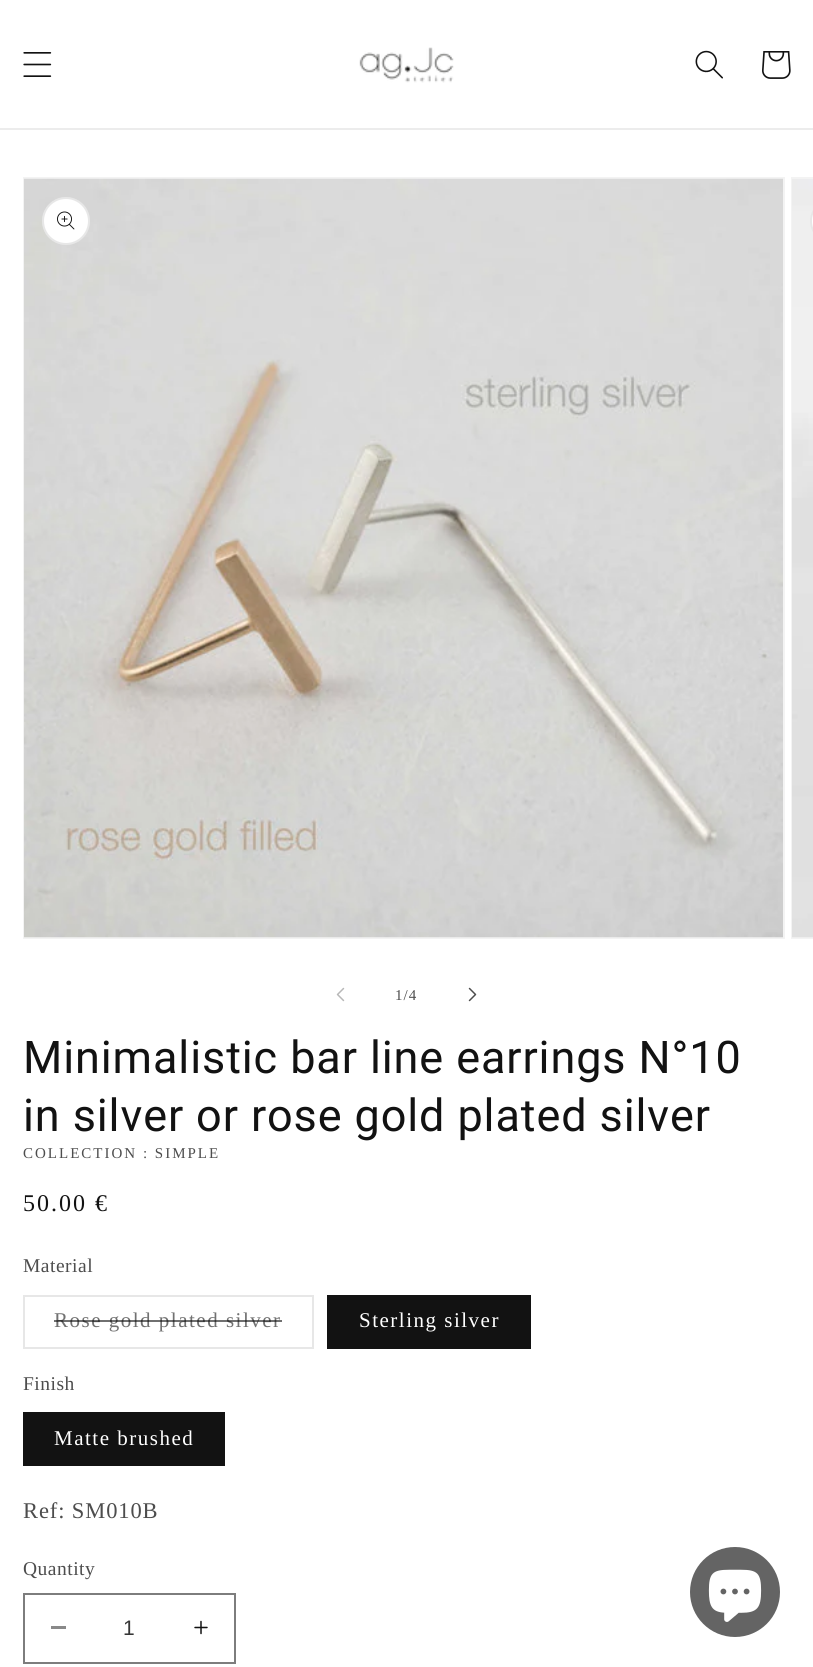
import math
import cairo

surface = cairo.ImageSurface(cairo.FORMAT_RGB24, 813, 1667)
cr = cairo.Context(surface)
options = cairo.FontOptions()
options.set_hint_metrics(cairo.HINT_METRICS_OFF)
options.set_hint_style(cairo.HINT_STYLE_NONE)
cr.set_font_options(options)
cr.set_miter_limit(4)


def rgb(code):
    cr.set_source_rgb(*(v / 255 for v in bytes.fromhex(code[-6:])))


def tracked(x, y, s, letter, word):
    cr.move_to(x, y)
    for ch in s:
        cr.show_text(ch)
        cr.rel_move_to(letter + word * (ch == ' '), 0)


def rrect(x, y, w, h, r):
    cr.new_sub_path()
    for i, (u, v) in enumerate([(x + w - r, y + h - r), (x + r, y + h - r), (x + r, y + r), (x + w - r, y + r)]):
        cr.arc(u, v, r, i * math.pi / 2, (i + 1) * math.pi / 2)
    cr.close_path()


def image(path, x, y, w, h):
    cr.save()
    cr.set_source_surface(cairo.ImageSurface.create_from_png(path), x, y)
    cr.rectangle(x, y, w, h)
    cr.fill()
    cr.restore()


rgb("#ffffff")
cr.paint()
rgb("#ececec")
cr.rectangle(0, 128, 813, 2)
cr.fill()
image("img/1.png", 23, 52, 29, 25)
image("img/2.png", 359, 47, 95, 36)
image("img/3.png", 695, 50, 28, 29)
image("img/4.png", 762, 51, 29, 28)
cr.rectangle(24, 178, 760, 760)
rgb("#f3f3f3")
cr.stroke()
image("img/5.png", 24, 178, 759, 760)
rgb("#ffffff")
cr.arc(66, 221, 24, 0, 2 * math.pi)
cr.fill()
cr.arc(66, 221, 23, 0, 2 * math.pi)
cr.set_source_rgba(0.071, 0.071, 0.071, 0.1)
cr.stroke()
image("img/6.png", 57, 211, 18, 19)
cr.rectangle(792, 178, 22, 760)
rgb("#f3f3f3")
cr.stroke()
image("img/7.png", 792, 179, 21, 759)
rgb("#ffffff")
cr.new_path()
cr.move_to(834, 197)
cr.line_to(813, 197)
cr.line_to(813, 245)
cr.line_to(834, 245)
cr.curve_to(820.5, 245, 810, 234.5, 810, 221)
cr.curve_to(810, 207.5, 820.5, 197, 834, 197)
cr.close_path()
cr.fill()
rrect(811, 198, 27, 46, 23)
cr.set_source_rgba(0.071, 0.071, 0.071, 0.1)
cr.stroke()
image("img/8.png", 336, 987, 9, 15)
image("img/9.png", 468, 987, 9, 15)
cr.rectangle(24, 1296, 289, 52)
rgb("#e7e7e7")
cr.stroke()
for x, y, w, h, color in [
    (327, 1295, 204, 54, "#121212"),
    (23, 1412, 202, 54, "#121212"),
    (51, 1626, 15, 3, "#898989"),
]:
    rgb(color)
    cr.rectangle(x, y, w, h)
    cr.fill()
image("img/10.png", 194, 1620, 14, 15)
cr.rectangle(24, 1594, 211, 69)
rgb("#7d7d7d")
cr.stroke()
rgb("#646464")
cr.arc(735, 1592, 45, 0, 2 * math.pi)
cr.fill()
image("img/11.png", 708, 1569, 54, 53)
cr.select_font_face("Liberation Serif")
cr.set_font_size(15)
rgb("#4d4d4d")
tracked(395, 1000, "1/4", 1, 0)
cr.select_font_face("Roboto")
cr.set_font_size(45)
rgb("#121212")
tracked(23, 1073, "Minimalistic bar line earrings N°10", 0.9, 0)
tracked(23, 1131, "in silver or rose gold plated silver", 0.9, 0)
cr.select_font_face("Liberation Serif")
cr.set_font_size(15)
rgb("#4d4d4d")
tracked(23, 1158, "COLLECTION : SIMPLE", 2, 0)
cr.set_font_size(24)
rgb("#121212")
tracked(23, 1211, "50.00 €", 2, 0)
cr.set_font_size(19.5)
rgb("#4d4d4d")
tracked(23, 1272, "Material", 0.5, 0)
cr.set_font_size(21)
rgb("#717171")
tracked(54, 1327, "Rose gold plated silver", 1.5, 0)
cr.set_source_rgba(0.071, 0.071, 0.071, 0.6)
cr.rectangle(54, 1320, 228, 2)
cr.fill()
rgb("#ffffff")
tracked(359, 1327, "Sterling silver", 1.5, 0)
cr.set_font_size(19.5)
rgb("#4d4d4d")
tracked(23, 1390, "Finish", 0.5, 0)
cr.set_font_size(21)
rgb("#ffffff")
tracked(54, 1445, "Matte brushed", 1.5, 0)
cr.set_font_size(22.5)
rgb("#4d4d4d")
tracked(23, 1518, "Ref: SM010B", 0.9, 0)
cr.set_font_size(19.5)
tracked(23, 1575, "Quantity", 0.5, 0)
cr.select_font_face("Liberation Sans")
cr.set_font_size(21)
rgb("#363636")
cr.move_to(123, 1635)
cr.show_text("1")
surface.write_to_png("page.png")
